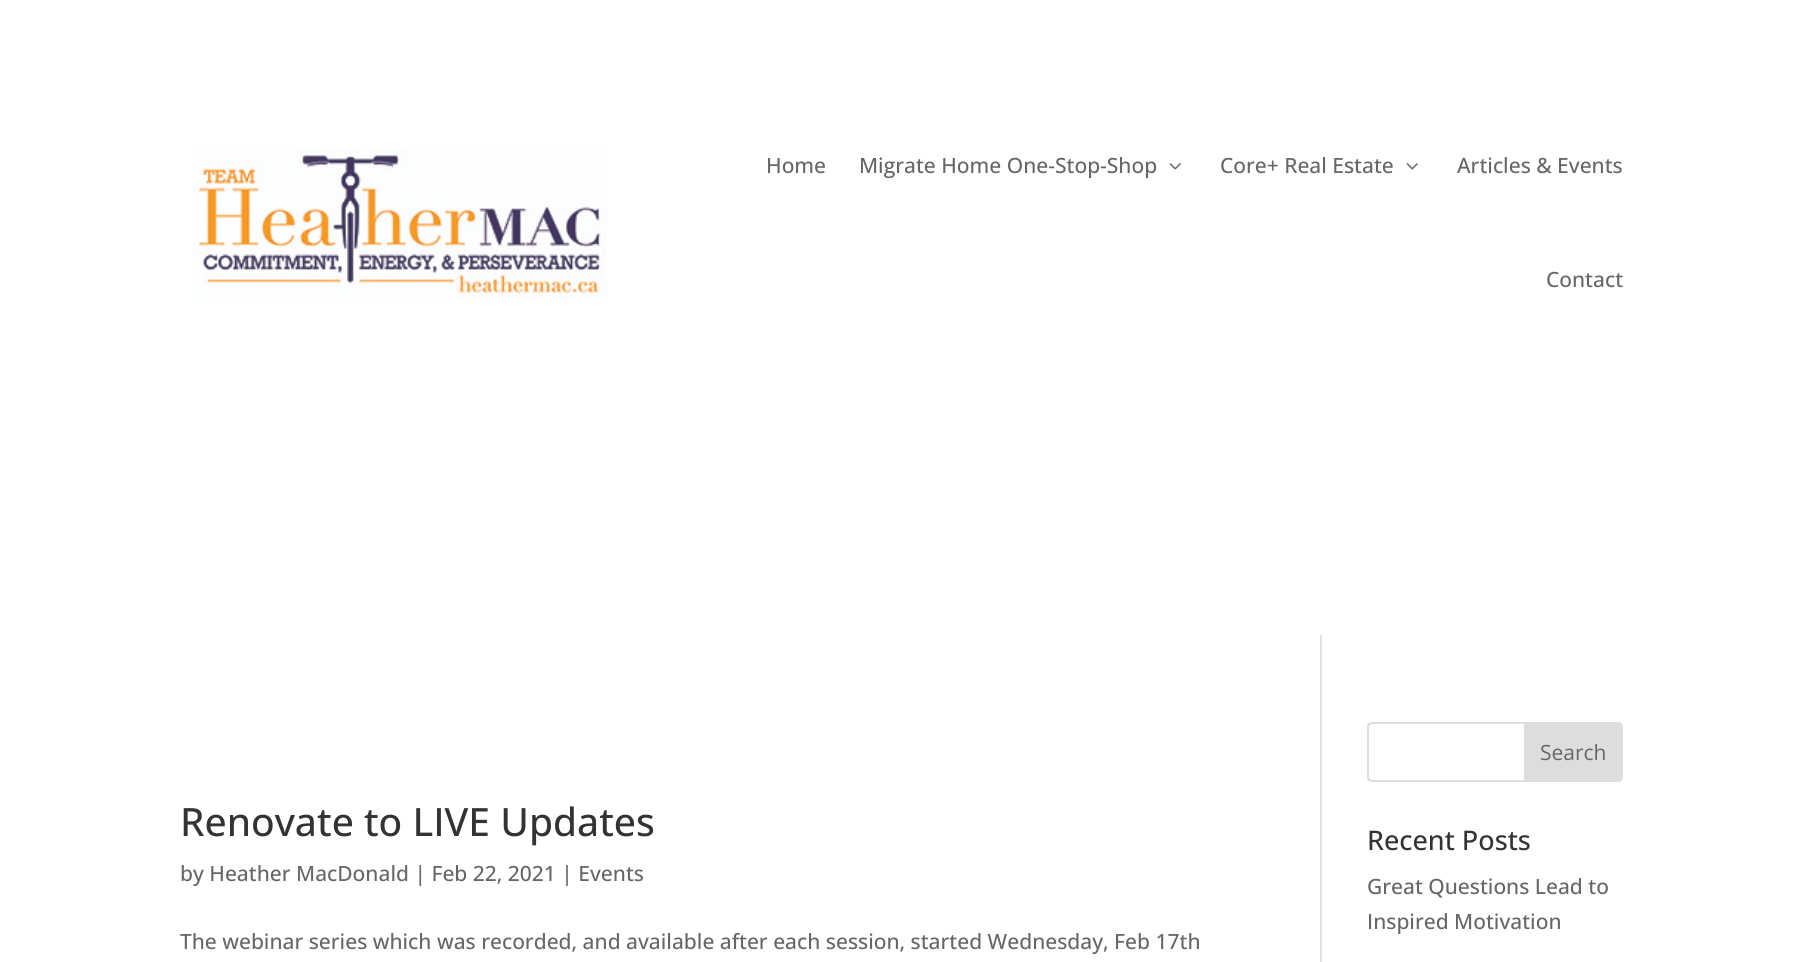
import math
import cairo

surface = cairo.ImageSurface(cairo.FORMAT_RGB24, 1803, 962)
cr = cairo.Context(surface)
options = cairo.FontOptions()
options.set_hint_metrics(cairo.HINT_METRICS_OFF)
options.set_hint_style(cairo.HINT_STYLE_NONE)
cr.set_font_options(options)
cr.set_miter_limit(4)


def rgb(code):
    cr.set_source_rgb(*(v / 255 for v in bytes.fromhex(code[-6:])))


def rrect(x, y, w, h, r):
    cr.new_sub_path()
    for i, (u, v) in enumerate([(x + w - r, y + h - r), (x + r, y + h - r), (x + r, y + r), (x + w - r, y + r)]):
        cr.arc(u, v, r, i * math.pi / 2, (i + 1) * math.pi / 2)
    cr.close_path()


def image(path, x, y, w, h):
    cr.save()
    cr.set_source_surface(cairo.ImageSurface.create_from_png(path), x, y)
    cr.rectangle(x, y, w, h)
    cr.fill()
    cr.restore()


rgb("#ffffff")
cr.paint()
image("img/1.png", 192, 149, 415, 153)
image("img/2.png", 1169, 163, 12, 7)
image("img/2.png", 1406, 163, 12, 7)
rgb("#e2e2e2")
cr.rectangle(1320, 635, 2, 327)
cr.fill()
rrect(1368, 723, 254, 58, 4)
rgb("#dddddd")
cr.stroke()
cr.new_path()
cr.move_to(1525, 723)
cr.line_to(1618, 723)
cr.curve_to(1620, 723, 1622, 725, 1622, 727)
cr.line_to(1622, 777)
cr.curve_to(1622, 779, 1620, 781, 1618, 781)
cr.line_to(1525, 781)
cr.close_path()
cr.fill_preserve()
cr.stroke()
cr.select_font_face("Open Sans Medium")
cr.set_font_size(21)
rgb("#666666")
for x, y, s in [
    (766, 173, "Home"),
    (859, 173, "Migrate Home One-Stop-Shop"),
    (1220, 173, "Core+ Real Estate"),
    (1457, 173, "Articles & Events"),
    (1546, 287, "Contact"),
]:
    cr.move_to(x, y)
    cr.show_text(s)
cr.set_font_size(39)
rgb("#333333")
cr.move_to(180, 836)
cr.show_text("Renovate to LIVE Updates")
cr.set_font_size(21)
rgb("#666666")
cr.move_to(180, 881)
cr.show_text("by Heather MacDonald | Feb 22, 2021 | Events")
cr.move_to(180, 949)
cr.show_text("The webinar series which was recorded, and available after each session, started Wednesday, Feb 17th")
cr.select_font_face("Open Sans")
cr.move_to(1540, 760)
cr.show_text("Search")
cr.select_font_face("Open Sans Medium")
cr.set_font_size(27)
rgb("#333333")
cr.move_to(1367, 850)
cr.show_text("Recent Posts")
cr.set_font_size(21)
rgb("#666666")
cr.move_to(1367, 894)
cr.show_text("Great Questions Lead to")
cr.move_to(1367, 929)
cr.show_text("Inspired Motivation")
surface.write_to_png("page.png")
